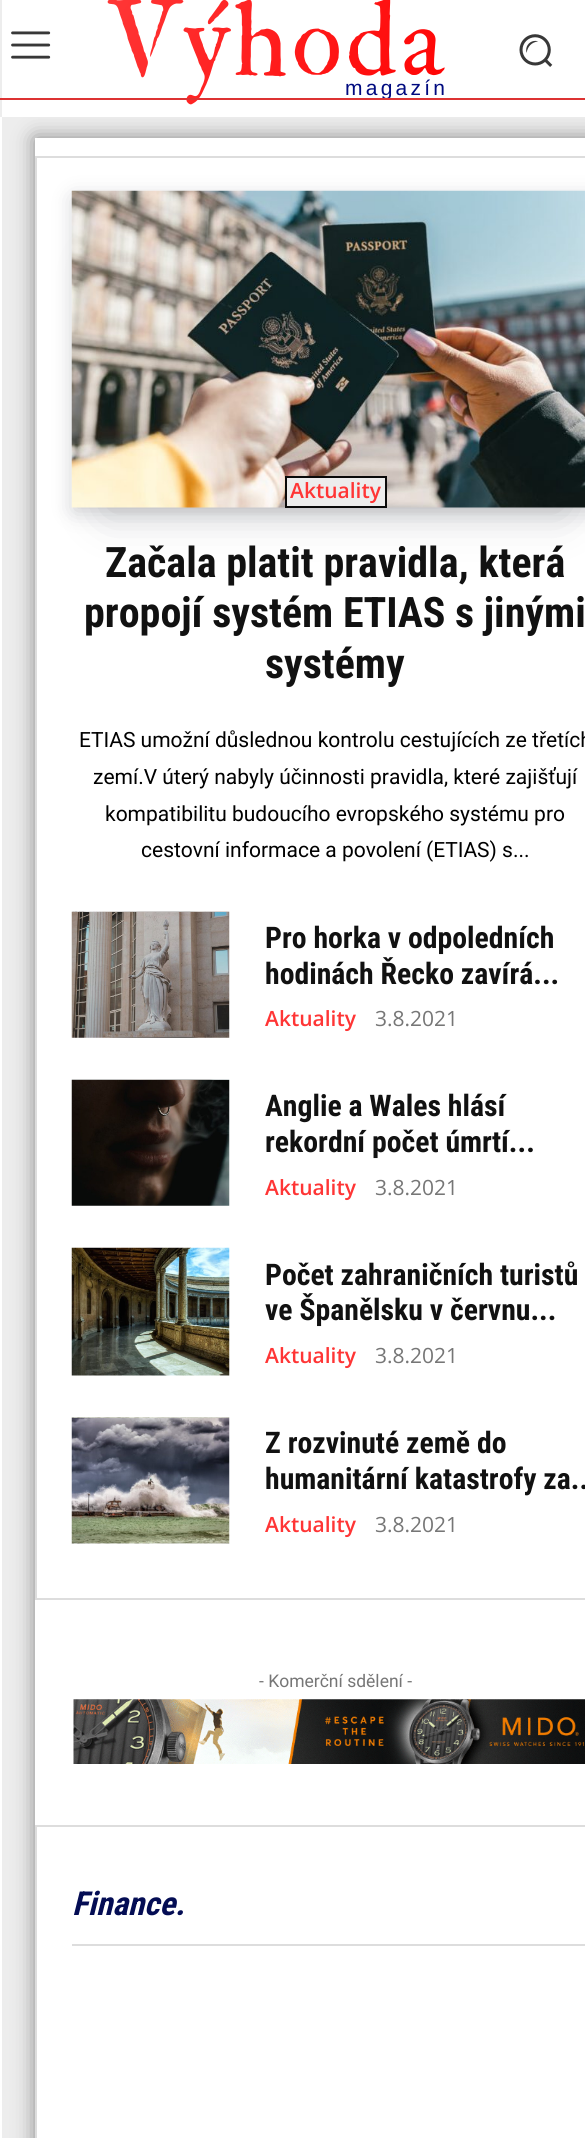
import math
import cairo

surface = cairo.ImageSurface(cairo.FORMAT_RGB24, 585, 2138)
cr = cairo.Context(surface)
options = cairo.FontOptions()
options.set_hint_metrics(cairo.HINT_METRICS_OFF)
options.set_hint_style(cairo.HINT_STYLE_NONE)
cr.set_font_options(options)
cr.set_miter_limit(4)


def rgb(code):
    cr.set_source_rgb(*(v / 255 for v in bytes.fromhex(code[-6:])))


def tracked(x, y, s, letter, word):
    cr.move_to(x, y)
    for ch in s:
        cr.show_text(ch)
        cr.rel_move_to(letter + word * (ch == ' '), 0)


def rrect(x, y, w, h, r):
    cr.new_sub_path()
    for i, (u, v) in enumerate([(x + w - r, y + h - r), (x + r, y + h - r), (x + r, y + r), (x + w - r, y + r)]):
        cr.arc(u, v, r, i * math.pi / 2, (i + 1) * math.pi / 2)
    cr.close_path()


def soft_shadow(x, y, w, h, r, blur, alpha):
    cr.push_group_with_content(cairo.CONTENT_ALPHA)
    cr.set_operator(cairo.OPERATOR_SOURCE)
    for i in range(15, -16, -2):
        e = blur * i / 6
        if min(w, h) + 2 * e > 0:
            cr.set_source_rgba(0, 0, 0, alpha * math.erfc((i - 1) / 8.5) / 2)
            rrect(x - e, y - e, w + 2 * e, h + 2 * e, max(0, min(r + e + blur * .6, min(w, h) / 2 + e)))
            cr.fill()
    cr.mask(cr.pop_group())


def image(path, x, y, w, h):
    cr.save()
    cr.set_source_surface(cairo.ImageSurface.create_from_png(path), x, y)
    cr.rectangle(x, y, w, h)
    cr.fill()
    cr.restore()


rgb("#ededed")
cr.paint()
rgb("#888888")
soft_shadow(35, 138, 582, 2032, 0, 10.5, 1)
rgb("#ffffff")
cr.rectangle(2, 0, 583, 117)
cr.fill()
image("img/1.png", 11, 31, 40, 28)
image("img/2.png", 519, 34, 34, 33)
cr.rectangle(0, 117, 2, 2021)
cr.fill()
cr.rectangle(35, 138, 550, 2000)
cr.fill()
cr.rectangle(36, 157, 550, 1442)
rgb("#dddddd")
cr.stroke()
rgb("#070a19")
soft_shadow(107, 264, 457, 247, 0, 23.5, 0.2)
soft_shadow(74, 198, 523, 313, 0, 10.5, 0.2)
image("img/3.png", 71, 190, 514, 318)
rgb("#ededed")
cr.rectangle(286, 477, 100, 30)
cr.fill_preserve()
rgb("#0a0a0a")
cr.stroke()
image("img/4.png", 71, 911, 159, 127)
image("img/5.png", 71, 1079, 159, 127)
image("img/6.png", 71, 1247, 159, 129)
image("img/7.png", 71, 1417, 159, 127)
image("img/8.png", 73, 1699, 512, 65)
cr.rectangle(36, 1826, 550, 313)
rgb("#dddddd")
cr.stroke()
cr.rectangle(72, 1944, 513, 2)
cr.fill()
cr.select_font_face("IM FELL Double Pica")
cr.set_font_size(105)
gradient = cairo.LinearGradient(111, -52, 443, 140)
gradient.add_color_stop_rgba(0, 1, 0.227, 0.227, 1)
gradient.add_color_stop_rgba(1, 1, 0, 0, 1)
cr.set_source(gradient)
tracked(106, 75, "Výhoda", 3.5, 0)
cr.select_font_face("Liberation Sans")
cr.set_font_size(21)
rgb("#000a7f")
tracked(345, 95, "magazín", 3.25, 0)
rgb("#dd3333")
cr.rectangle(0, 98, 585, 2)
cr.fill()
cr.select_font_face("Open Sans SemiBold")
rgb("#ff3535")
cr.move_to(290, 498)
cr.show_text("Aktuality")
cr.select_font_face("Roboto Condensed", cairo.FONT_SLANT_NORMAL, cairo.FONT_WEIGHT_BOLD)
cr.set_font_size(42)
rgb("#111111")
for x, y, s in [
    (105, 577, "Začala platit pravidla, která"),
    (84, 627, "propojí systém ETIAS s jinými"),
    (265, 678, "systémy"),
]:
    cr.move_to(x, y)
    cr.show_text(s)
cr.select_font_face("Roboto")
cr.set_font_size(21)
rgb("#000000")
for x, y, s in [
    (79, 747, "ETIAS umožní důslednou kontrolu cestujících ze třetích"),
    (93, 784, "zemí.V úterý nabyly účinnosti pravidla, které zajišťují"),
    (105, 821, "kompatibilitu budoucího evropského systému pro"),
    (141, 857, "cestovní informace a povolení (ETIAS) s..."),
]:
    cr.move_to(x, y)
    cr.show_text(s)
cr.select_font_face("Roboto Condensed", cairo.FONT_SLANT_NORMAL, cairo.FONT_WEIGHT_BOLD)
cr.set_font_size(29.75)
rgb("#111111")
cr.move_to(265, 948)
cr.show_text("Pro horka v odpoledních")
cr.move_to(265, 984)
cr.show_text("hodinách Řecko zavírá...")
cr.select_font_face("Open Sans SemiBold")
cr.set_font_size(21)
rgb("#ff3535")
cr.move_to(265, 1026)
cr.show_text("Aktuality")
cr.select_font_face("Open Sans")
rgb("#767676")
cr.move_to(375, 1026)
cr.show_text("3.8.2021")
cr.select_font_face("Roboto Condensed", cairo.FONT_SLANT_NORMAL, cairo.FONT_WEIGHT_BOLD)
cr.set_font_size(29.75)
rgb("#111111")
cr.move_to(265, 1116)
cr.show_text("Anglie a Wales hlásí")
cr.move_to(265, 1152)
cr.show_text("rekordní počet úmrtí...")
cr.select_font_face("Open Sans SemiBold")
cr.set_font_size(21)
rgb("#ff3535")
cr.move_to(265, 1195)
cr.show_text("Aktuality")
cr.select_font_face("Open Sans")
rgb("#767676")
cr.move_to(375, 1195)
cr.show_text("3.8.2021")
cr.select_font_face("Roboto Condensed", cairo.FONT_SLANT_NORMAL, cairo.FONT_WEIGHT_BOLD)
cr.set_font_size(29.75)
rgb("#111111")
cr.move_to(265, 1285)
cr.show_text("Počet zahraničních turistů")
cr.move_to(265, 1320)
cr.show_text("ve Španělsku v červnu...")
cr.select_font_face("Open Sans SemiBold")
cr.set_font_size(21)
rgb("#ff3535")
cr.move_to(265, 1363)
cr.show_text("Aktuality")
cr.select_font_face("Open Sans")
rgb("#767676")
cr.move_to(375, 1363)
cr.show_text("3.8.2021")
cr.select_font_face("Roboto Condensed", cairo.FONT_SLANT_NORMAL, cairo.FONT_WEIGHT_BOLD)
cr.set_font_size(29.75)
rgb("#111111")
cr.move_to(265, 1453)
cr.show_text("Z rozvinuté země do")
cr.move_to(265, 1489)
cr.show_text("humanitární katastrofy za..")
cr.select_font_face("Open Sans SemiBold")
cr.set_font_size(21)
rgb("#ff3535")
cr.move_to(265, 1532)
cr.show_text("Aktuality")
cr.select_font_face("Open Sans")
rgb("#767676")
cr.move_to(375, 1532)
cr.show_text("3.8.2021")
cr.select_font_face("Roboto")
cr.set_font_size(17.5)
cr.move_to(259, 1687)
cr.show_text("- Komerční sdělení -")
cr.select_font_face("Roboto Condensed", cairo.FONT_SLANT_ITALIC, cairo.FONT_WEIGHT_BOLD)
cr.set_font_size(33)
rgb("#040d54")
cr.move_to(72, 1915)
cr.show_text("Finance.")
surface.write_to_png("page.png")
